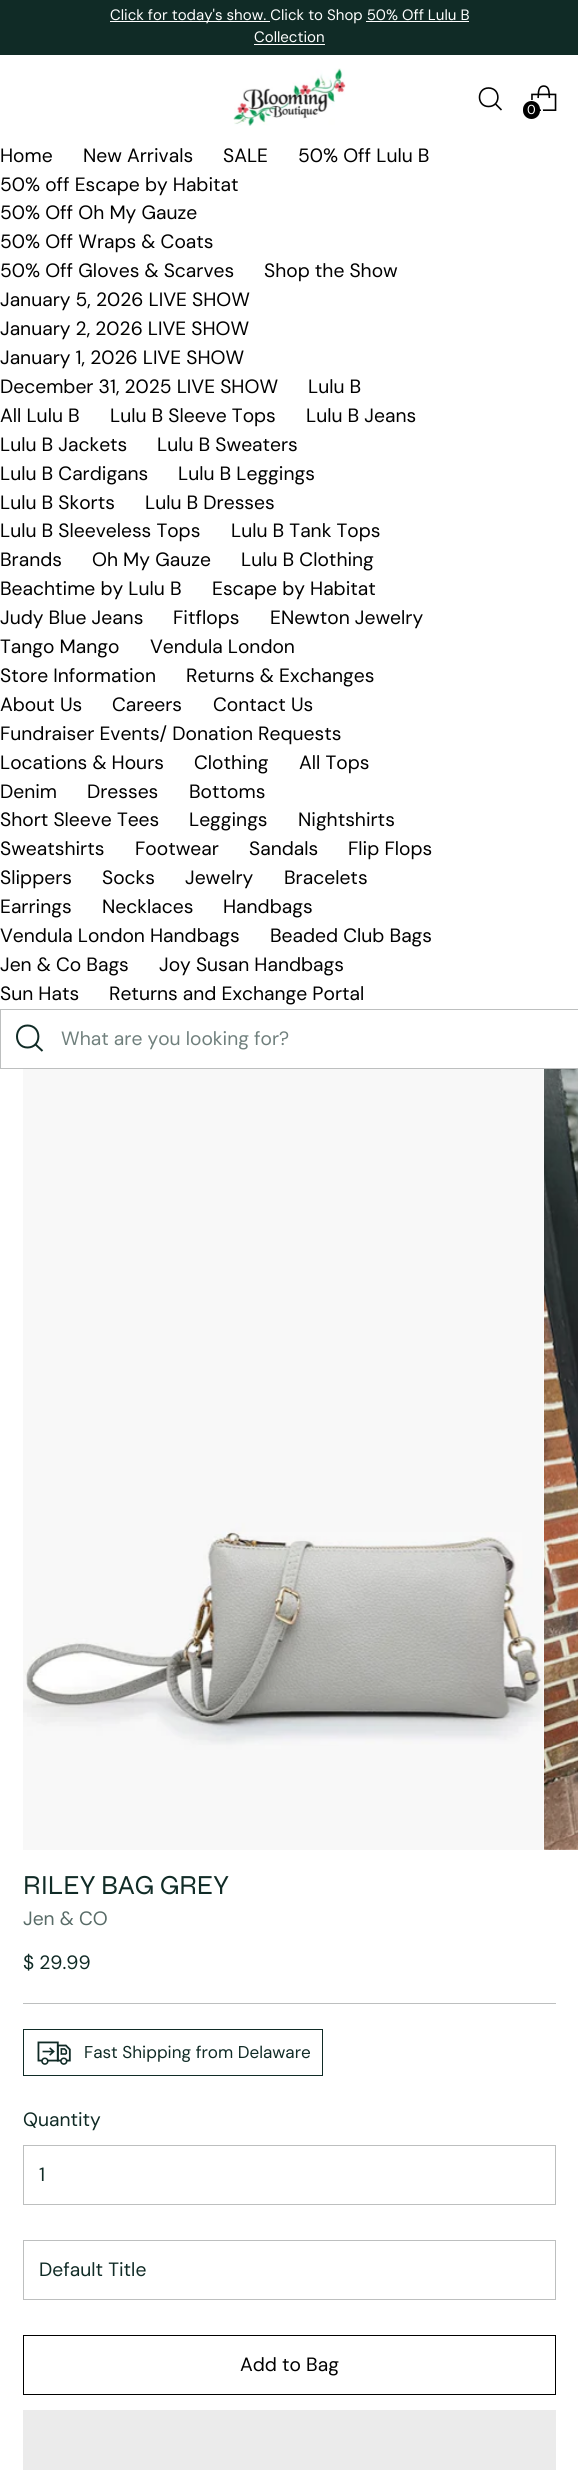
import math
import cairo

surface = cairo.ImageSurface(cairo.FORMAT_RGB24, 578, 2483)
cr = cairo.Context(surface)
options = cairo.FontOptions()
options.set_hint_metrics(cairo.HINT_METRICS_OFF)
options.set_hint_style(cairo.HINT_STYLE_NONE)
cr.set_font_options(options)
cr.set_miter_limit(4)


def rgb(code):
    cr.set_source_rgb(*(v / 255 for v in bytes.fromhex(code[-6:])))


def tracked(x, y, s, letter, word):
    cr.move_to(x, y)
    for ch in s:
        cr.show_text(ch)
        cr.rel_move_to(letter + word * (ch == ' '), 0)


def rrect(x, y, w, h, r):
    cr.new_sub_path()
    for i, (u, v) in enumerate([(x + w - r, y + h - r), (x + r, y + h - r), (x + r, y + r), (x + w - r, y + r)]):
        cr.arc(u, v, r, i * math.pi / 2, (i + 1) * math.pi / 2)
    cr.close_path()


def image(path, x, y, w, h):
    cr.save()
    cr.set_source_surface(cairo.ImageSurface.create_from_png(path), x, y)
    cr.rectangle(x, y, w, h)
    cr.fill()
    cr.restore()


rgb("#ffffff")
cr.paint()
for x, y, w, h, color in [
    (0, 0, 578, 55, "#102b26"),
    (110, 21, 160, 1, "#ffffff"),
    (366, 21, 103, 1, "#ffffff"),
    (254, 44, 71, 1, "#ffffff"),
]:
    rgb(color)
    cr.rectangle(x, y, w, h)
    cr.fill()
image("img/1.png", 233, 68, 113, 58)
cr.new_path()
cr.move_to(488.5, 106.5)
cr.curve_to(501, 106.5, 501, 88, 488.5, 88)
cr.curve_to(476.5, 88, 476.5, 106.5, 488.5, 106.5)
cr.close_path()
rgb("#000000")
cr.set_line_width(1.6)
cr.set_line_cap(cairo.LINE_CAP_ROUND)
cr.stroke()
cr.new_path()
cr.move_to(495.5, 104)
cr.line_to(501.5, 110)
cr.set_line_cap(cairo.LINE_CAP_BUTT)
cr.stroke()
image("img/2.png", 531, 85, 26, 26)
rrect(522, 101, 20, 19, 9.5)
rgb("#ffffff")
cr.set_line_width(2)
cr.stroke()
rgb("#000000")
rrect(523, 101, 17, 18, 8.5)
cr.fill()
cr.rectangle(0.5, 1009.5, 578, 59)
rgb("#bdbfbf")
cr.set_line_width(1)
cr.stroke()
cr.new_path()
cr.move_to(27.5, 1047.5)
cr.curve_to(42, 1047.5, 42, 1025.5, 27.5, 1025.5)
cr.curve_to(13.5, 1025.5, 13.5, 1047.5, 27.5, 1047.5)
cr.close_path()
rgb("#102b26")
cr.set_line_width(2)
cr.set_line_cap(cairo.LINE_CAP_ROUND)
cr.stroke()
cr.new_path()
cr.move_to(35.5, 1044.5)
cr.line_to(42.5, 1051)
cr.set_line_cap(cairo.LINE_CAP_BUTT)
cr.stroke()
image("img/3.png", 23, 1069, 521, 781)
image("img/4.png", 544, 1069, 34, 781)
rgb("#bdbfbf")
cr.rectangle(23, 2003, 533, 1)
cr.fill()
cr.rectangle(23.5, 2029.5, 299, 46)
rgb("#102b26")
cr.set_line_width(1)
cr.stroke()
image("img/5.png", 37, 2041, 34, 24)
cr.rectangle(23.5, 2145.5, 532, 59)
rgb("#bdbfbf")
cr.stroke()
cr.rectangle(23.5, 2240.5, 532, 59)
cr.stroke()
cr.rectangle(23.5, 2335.5, 532, 59)
rgb("#000000")
cr.stroke()
rgb("#ebebeb")
cr.rectangle(23, 2410, 533, 60)
cr.fill()
cr.select_font_face("DM Sans")
cr.set_font_size(15)
rgb("#ffffff")
cr.move_to(110, 20)
cr.show_text("Click for today's show. Click to Shop 50% Off Lulu B")
cr.move_to(254, 42)
cr.show_text("Collection")
cr.select_font_face("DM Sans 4")
cr.set_font_size(13)
cr.move_to(527, 114)
cr.show_text("0")
cr.select_font_face("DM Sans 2")
cr.set_font_size(19.25)
rgb("#000000")
for x, y, s in [
    (0, 162, "Home"),
    (83, 162, "New Arrivals"),
    (223, 162, "SALE"),
    (298, 162, "50% Off Lulu B"),
    (0, 191, "50% off Escape by Habitat"),
    (0, 219, "50% Off Oh My Gauze"),
    (0, 248, "50% Off Wraps & Coats"),
    (0, 277, "50% Off Gloves & Scarves"),
    (264, 277, "Shop the Show"),
    (0, 306, "January 5, 2026 LIVE SHOW"),
    (0, 335, "January 2, 2026 LIVE SHOW"),
    (0, 364, "January 1, 2026 LIVE SHOW"),
    (0, 393, "December 31, 2025 LIVE SHOW"),
    (308, 393, "Lulu B"),
    (0, 422, "All Lulu B"),
    (110, 422, "Lulu B Sleeve Tops"),
    (306, 422, "Lulu B Jeans"),
    (0, 451, "Lulu B Jackets"),
    (157, 451, "Lulu B Sweaters"),
    (0, 480, "Lulu B Cardigans"),
    (178, 480, "Lulu B Leggings"),
    (0, 509, "Lulu B Skorts"),
    (145, 509, "Lulu B Dresses"),
    (0, 537, "Lulu B Sleeveless Tops"),
    (231, 537, "Lulu B Tank Tops"),
    (0, 566, "Brands"),
    (92, 566, "Oh My Gauze"),
    (241, 566, "Lulu B Clothing"),
    (0, 595, "Beachtime by Lulu B"),
    (212, 595, "Escape by Habitat"),
    (0, 624, "Judy Blue Jeans"),
    (173, 624, "Fitflops"),
    (270, 624, "ENewton Jewelry"),
    (0, 653, "Tango Mango"),
    (150, 653, "Vendula London"),
    (0, 682, "Store Information"),
    (186, 682, "Returns & Exchanges"),
    (0, 711, "About Us"),
    (112, 711, "Careers"),
    (213, 711, "Contact Us"),
    (0, 740, "Fundraiser Events/ Donation Requests"),
    (0, 769, "Locations & Hours"),
    (194, 769, "Clothing"),
    (299, 769, "All Tops"),
    (0, 798, "Denim"),
    (87, 798, "Dresses"),
    (189, 798, "Bottoms"),
    (0, 826, "Short Sleeve Tees"),
    (189, 826, "Leggings"),
    (298, 826, "Nightshirts"),
    (0, 855, "Sweatshirts"),
    (135, 855, "Footwear"),
    (249, 855, "Sandals"),
    (348, 855, "Flip Flops"),
    (0, 884, "Slippers"),
    (102, 884, "Socks"),
    (185, 884, "Jewelry"),
    (284, 884, "Bracelets"),
    (0, 913, "Earrings"),
    (102, 913, "Necklaces"),
    (223, 913, "Handbags"),
    (0, 942, "Vendula London Handbags"),
    (270, 942, "Beaded Club Bags"),
    (0, 971, "Jen & Co Bags"),
    (159, 971, "Joy Susan Handbags"),
    (0, 1000, "Sun Hats"),
    (109, 1000, "Returns and Exchange Portal"),
]:
    cr.move_to(x, y)
    cr.show_text(s)
rgb("#70807d")
cr.move_to(61, 1045)
cr.show_text("What are you looking for?")
cr.select_font_face("Syne")
cr.set_font_size(27.5)
rgb("#102b26")
tracked(23, 1894, "RILEY BAG GREY", -0.25, 0)
cr.select_font_face("DM Sans 2")
cr.set_font_size(19.25)
rgb("#586b67")
cr.move_to(23, 1925)
cr.show_text("Jen & CO")
rgb("#102b26")
cr.move_to(23, 1969)
cr.show_text("$ 29.99")
cr.select_font_face("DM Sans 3")
cr.set_font_size(17.1)
cr.move_to(84, 2058)
cr.show_text("Fast Shipping from Delaware")
cr.select_font_face("DM Sans 2")
cr.set_font_size(19.25)
for x, y, s in [
    (23, 2126, "Quantity"),
    (39, 2181, "1"),
    (39, 2276, "Default Title"),
]:
    cr.move_to(x, y)
    cr.show_text(s)
rgb("#000000")
cr.move_to(240, 2371)
cr.show_text("Add to Bag")
surface.write_to_png("page.png")
